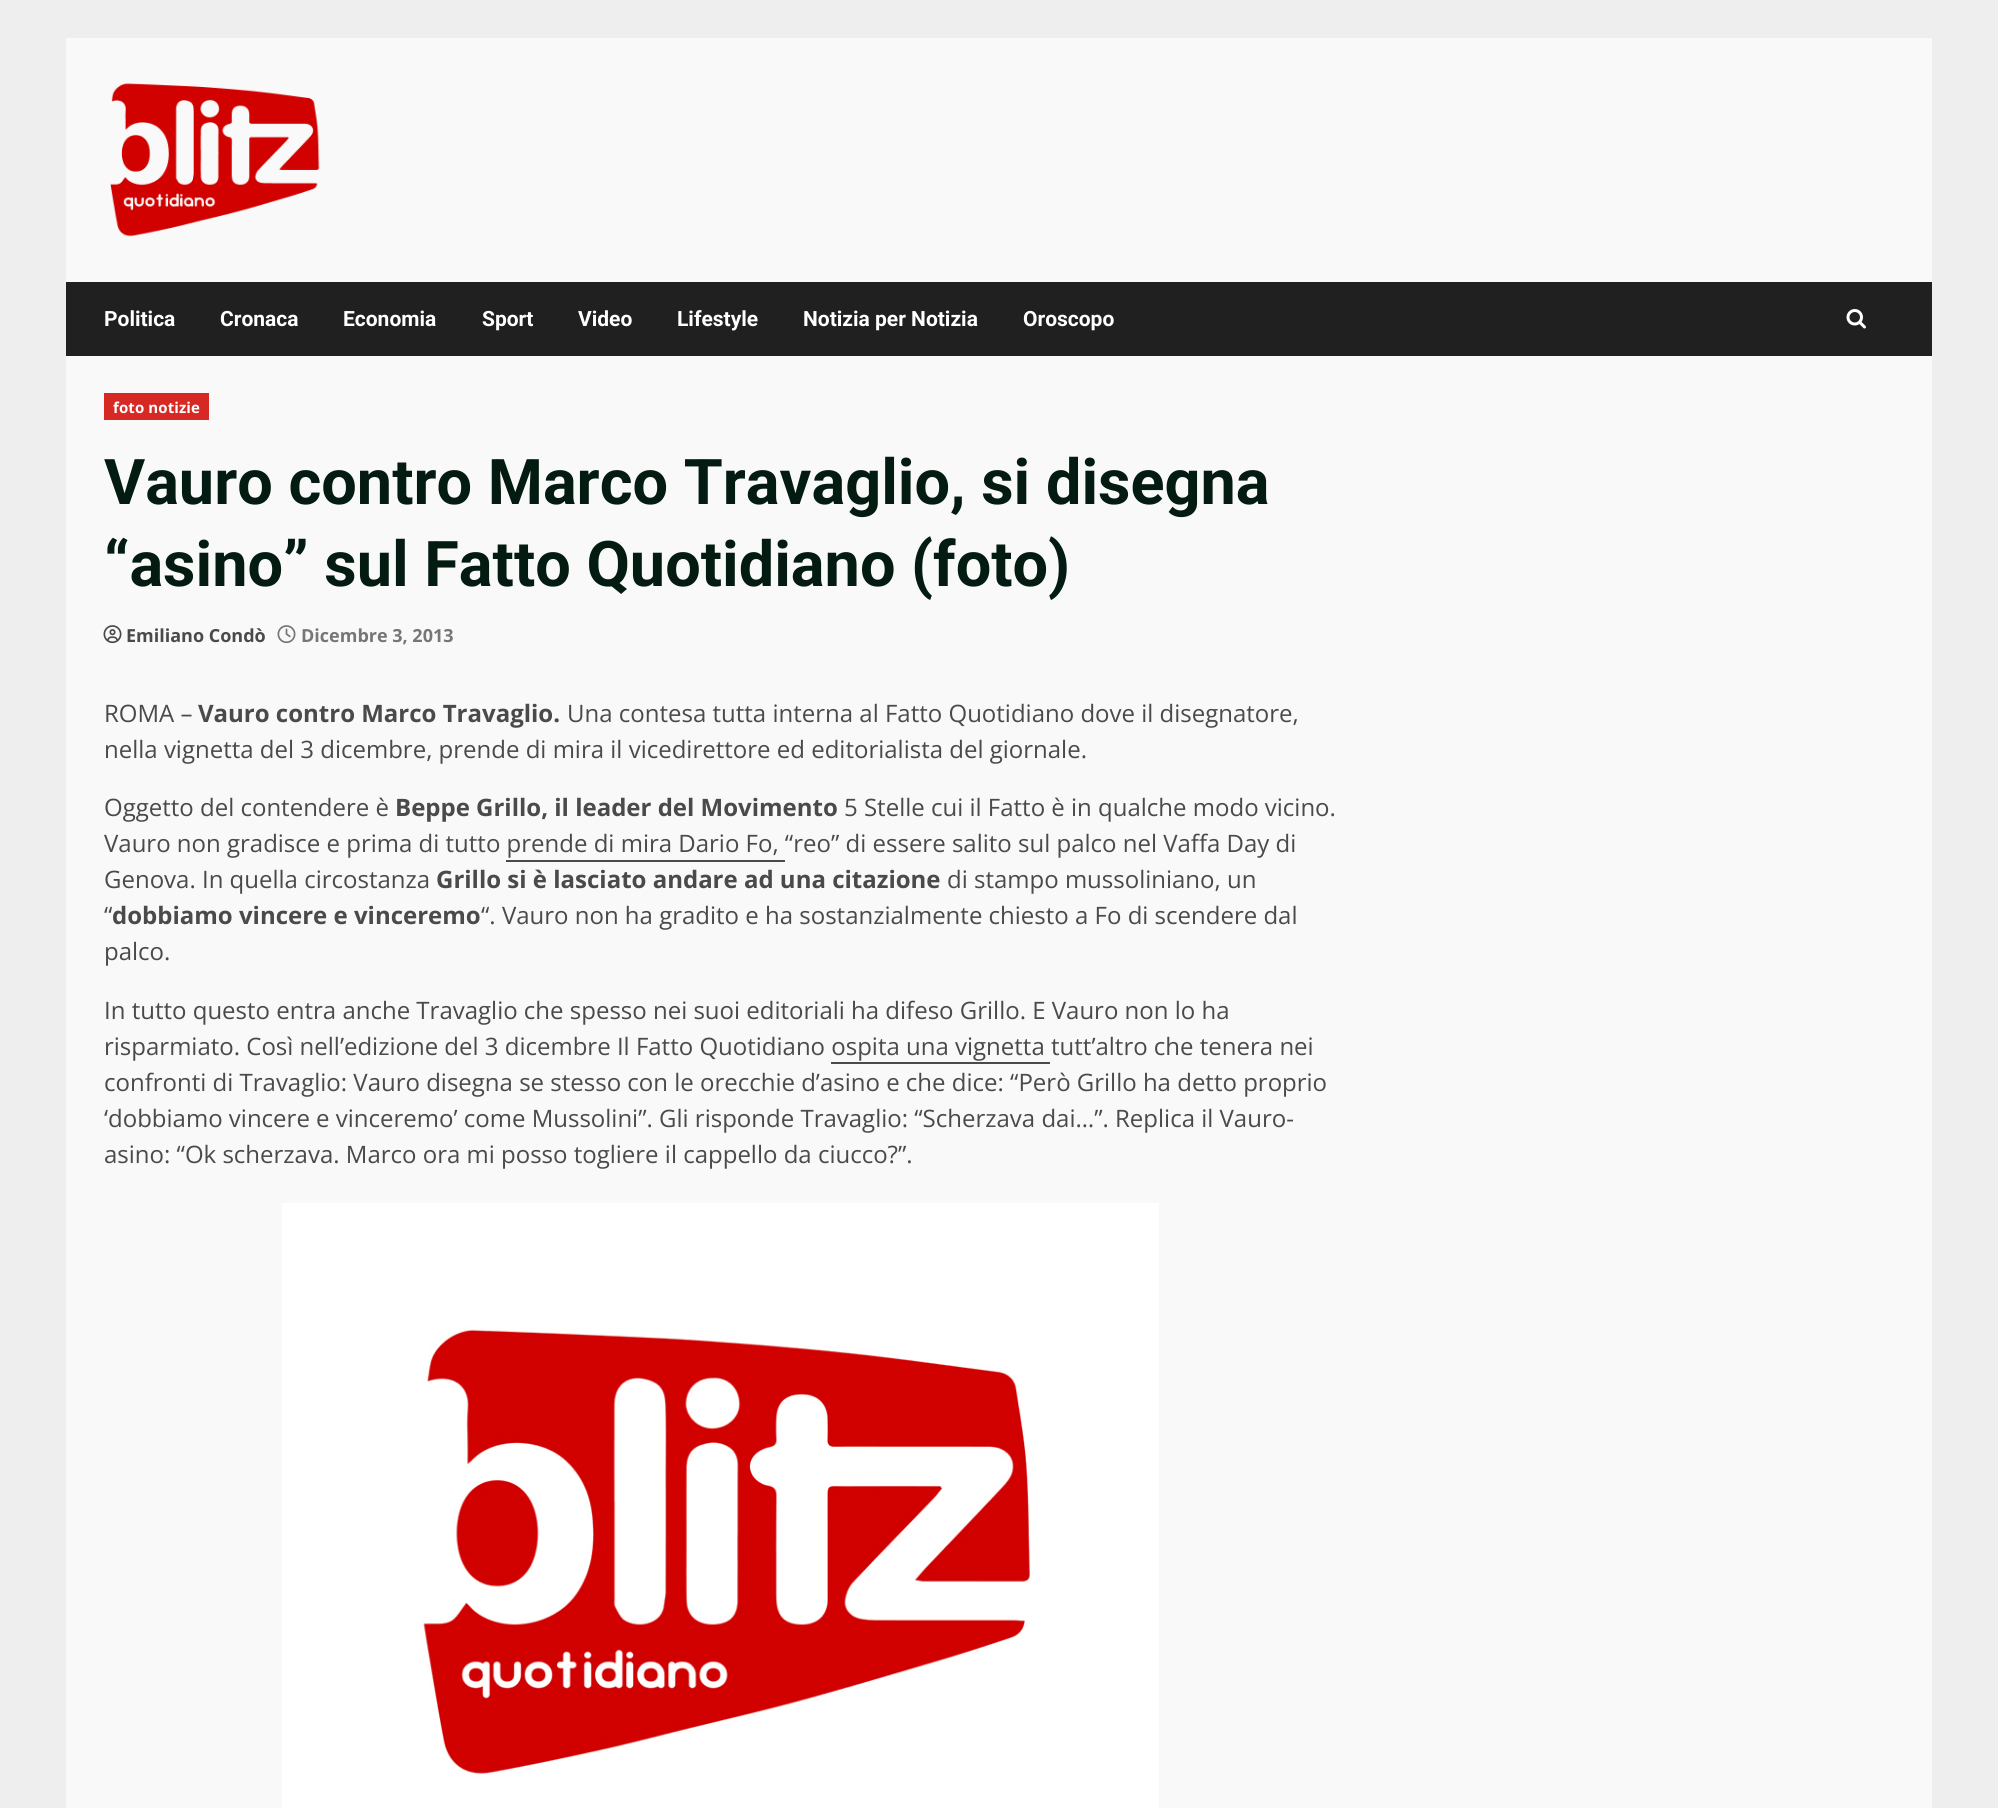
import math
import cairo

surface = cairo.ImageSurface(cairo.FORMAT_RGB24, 1998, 1808)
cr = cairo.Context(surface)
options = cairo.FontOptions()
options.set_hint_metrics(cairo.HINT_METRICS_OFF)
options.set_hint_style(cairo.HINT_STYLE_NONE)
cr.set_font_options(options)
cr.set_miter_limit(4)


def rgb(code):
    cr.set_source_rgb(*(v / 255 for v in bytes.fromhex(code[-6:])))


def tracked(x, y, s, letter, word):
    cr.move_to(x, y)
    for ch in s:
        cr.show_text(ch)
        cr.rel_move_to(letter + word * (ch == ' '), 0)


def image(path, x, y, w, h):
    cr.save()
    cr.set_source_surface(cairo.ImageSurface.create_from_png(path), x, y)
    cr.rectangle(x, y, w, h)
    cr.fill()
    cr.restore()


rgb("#eeeeee")
cr.paint()
rgb("#f9f9f9")
cr.rectangle(66, 38, 1866, 1770)
cr.fill()
image("img/1.png", 110, 83, 210, 154)
rgb("#202020")
cr.rectangle(66, 282, 1866, 74)
cr.fill()
image("img/2.png", 1846, 309, 20, 20)
rgb("#d72924")
cr.rectangle(104, 393, 105, 27)
cr.fill()
image("img/3.png", 103, 625, 19, 19)
image("img/4.png", 277, 625, 19, 19)
rgb("#4a4a4a")
cr.rectangle(506, 860, 279, 2)
cr.fill()
cr.rectangle(831, 1062, 219, 2)
cr.fill()
image("img/5.png", 282, 1203, 877, 605)
cr.select_font_face("Roboto", cairo.FONT_SLANT_NORMAL, cairo.FONT_WEIGHT_BOLD)
cr.set_font_size(21)
rgb("#ffffff")
for x, y, s in [
    (104, 326, "Politica"),
    (220, 326, "Cronaca"),
    (343, 326, "Economia"),
    (482, 326, "Sport"),
    (578, 326, "Video"),
    (677, 326, "Lifestyle"),
    (803, 326, "Notizia per Notizia"),
    (1023, 326, "Oroscopo"),
]:
    cr.move_to(x, y)
    cr.show_text(s)
cr.select_font_face("Open Sans", cairo.FONT_SLANT_NORMAL, cairo.FONT_WEIGHT_BOLD)
cr.set_font_size(15)
tracked(113, 413, "foto notizie", 0.1, 0)
cr.select_font_face("Roboto", cairo.FONT_SLANT_NORMAL, cairo.FONT_WEIGHT_BOLD)
cr.set_font_size(63)
rgb("#031b11")
cr.move_to(104, 504)
cr.show_text("Vauro contro Marco Travaglio, si disegna")
cr.move_to(104, 586)
cr.show_text("“asino” sul Fatto Quotidiano (foto)")
cr.select_font_face("Open Sans", cairo.FONT_SLANT_NORMAL, cairo.FONT_WEIGHT_BOLD)
cr.set_font_size(18)
rgb("#4a4a4a")
cr.move_to(126, 642)
cr.show_text("Emiliano Condò")
rgb("#767676")
cr.move_to(301, 642)
cr.show_text("Dicembre 3, 2013")
cr.select_font_face("Open Sans")
cr.set_font_size(24)
rgb("#4a4a4a")
cr.move_to(104, 722)
cr.show_text("ROMA –")
cr.select_font_face("Open Sans", cairo.FONT_SLANT_NORMAL, cairo.FONT_WEIGHT_BOLD)
cr.move_to(198, 722)
cr.show_text("Vauro contro Marco Travaglio.")
cr.select_font_face("Open Sans")
for x, y, s in [
    (567, 722, "Una contesa tutta interna al Fatto Quotidiano dove il disegnatore,"),
    (104, 758, "nella vignetta del 3 dicembre, prende di mira il vicedirettore ed editorialista del giornale."),
    (104, 816, "Oggetto del contendere è"),
]:
    cr.move_to(x, y)
    cr.show_text(s)
cr.select_font_face("Open Sans", cairo.FONT_SLANT_NORMAL, cairo.FONT_WEIGHT_BOLD)
cr.move_to(395, 816)
cr.show_text("Beppe Grillo, il leader del Movimento")
cr.select_font_face("Open Sans")
for x, y, s in [
    (844, 816, "5 Stelle cui il Fatto è in qualche modo vicino."),
    (104, 852, "Vauro non gradisce e prima di tutto prende di mira Dario Fo, “reo” di essere salito sul palco nel Vaffa Day di"),
    (104, 888, "Genova. In quella circostanza"),
]:
    cr.move_to(x, y)
    cr.show_text(s)
cr.select_font_face("Open Sans", cairo.FONT_SLANT_NORMAL, cairo.FONT_WEIGHT_BOLD)
cr.move_to(436, 888)
cr.show_text("Grillo si è lasciato andare ad una citazione")
cr.select_font_face("Open Sans")
cr.move_to(947, 888)
cr.show_text("di stampo mussoliniano, un")
cr.move_to(104, 924)
cr.show_text("“")
cr.select_font_face("Open Sans", cairo.FONT_SLANT_NORMAL, cairo.FONT_WEIGHT_BOLD)
cr.move_to(112, 924)
cr.show_text("dobbiamo vincere e vinceremo")
cr.select_font_face("Open Sans")
for x, y, s in [
    (481, 924, "“. Vauro non ha gradito e ha sostanzialmente chiesto a Fo di scendere dal"),
    (104, 960, "palco."),
    (104, 1019, "In tutto questo entra anche Travaglio che spesso nei suoi editoriali ha difeso Grillo. E Vauro non lo ha"),
    (104, 1055, "risparmiato. Così nell’edizione del 3 dicembre Il Fatto Quotidiano ospita una vignetta tutt’altro che tenera nei"),
    (104, 1091, "confronti di Travaglio: Vauro disegna se stesso con le orecchie d’asino e che dice: “Però Grillo ha detto proprio"),
    (104, 1127, "‘dobbiamo vincere e vinceremo’ come Mussolini”. Gli risponde Travaglio: “Scherzava dai…”. Replica il Vauro-"),
    (104, 1163, "asino: “Ok scherzava. Marco ora mi posso togliere il cappello da ciucco?”."),
]:
    cr.move_to(x, y)
    cr.show_text(s)
surface.write_to_png("page.png")
